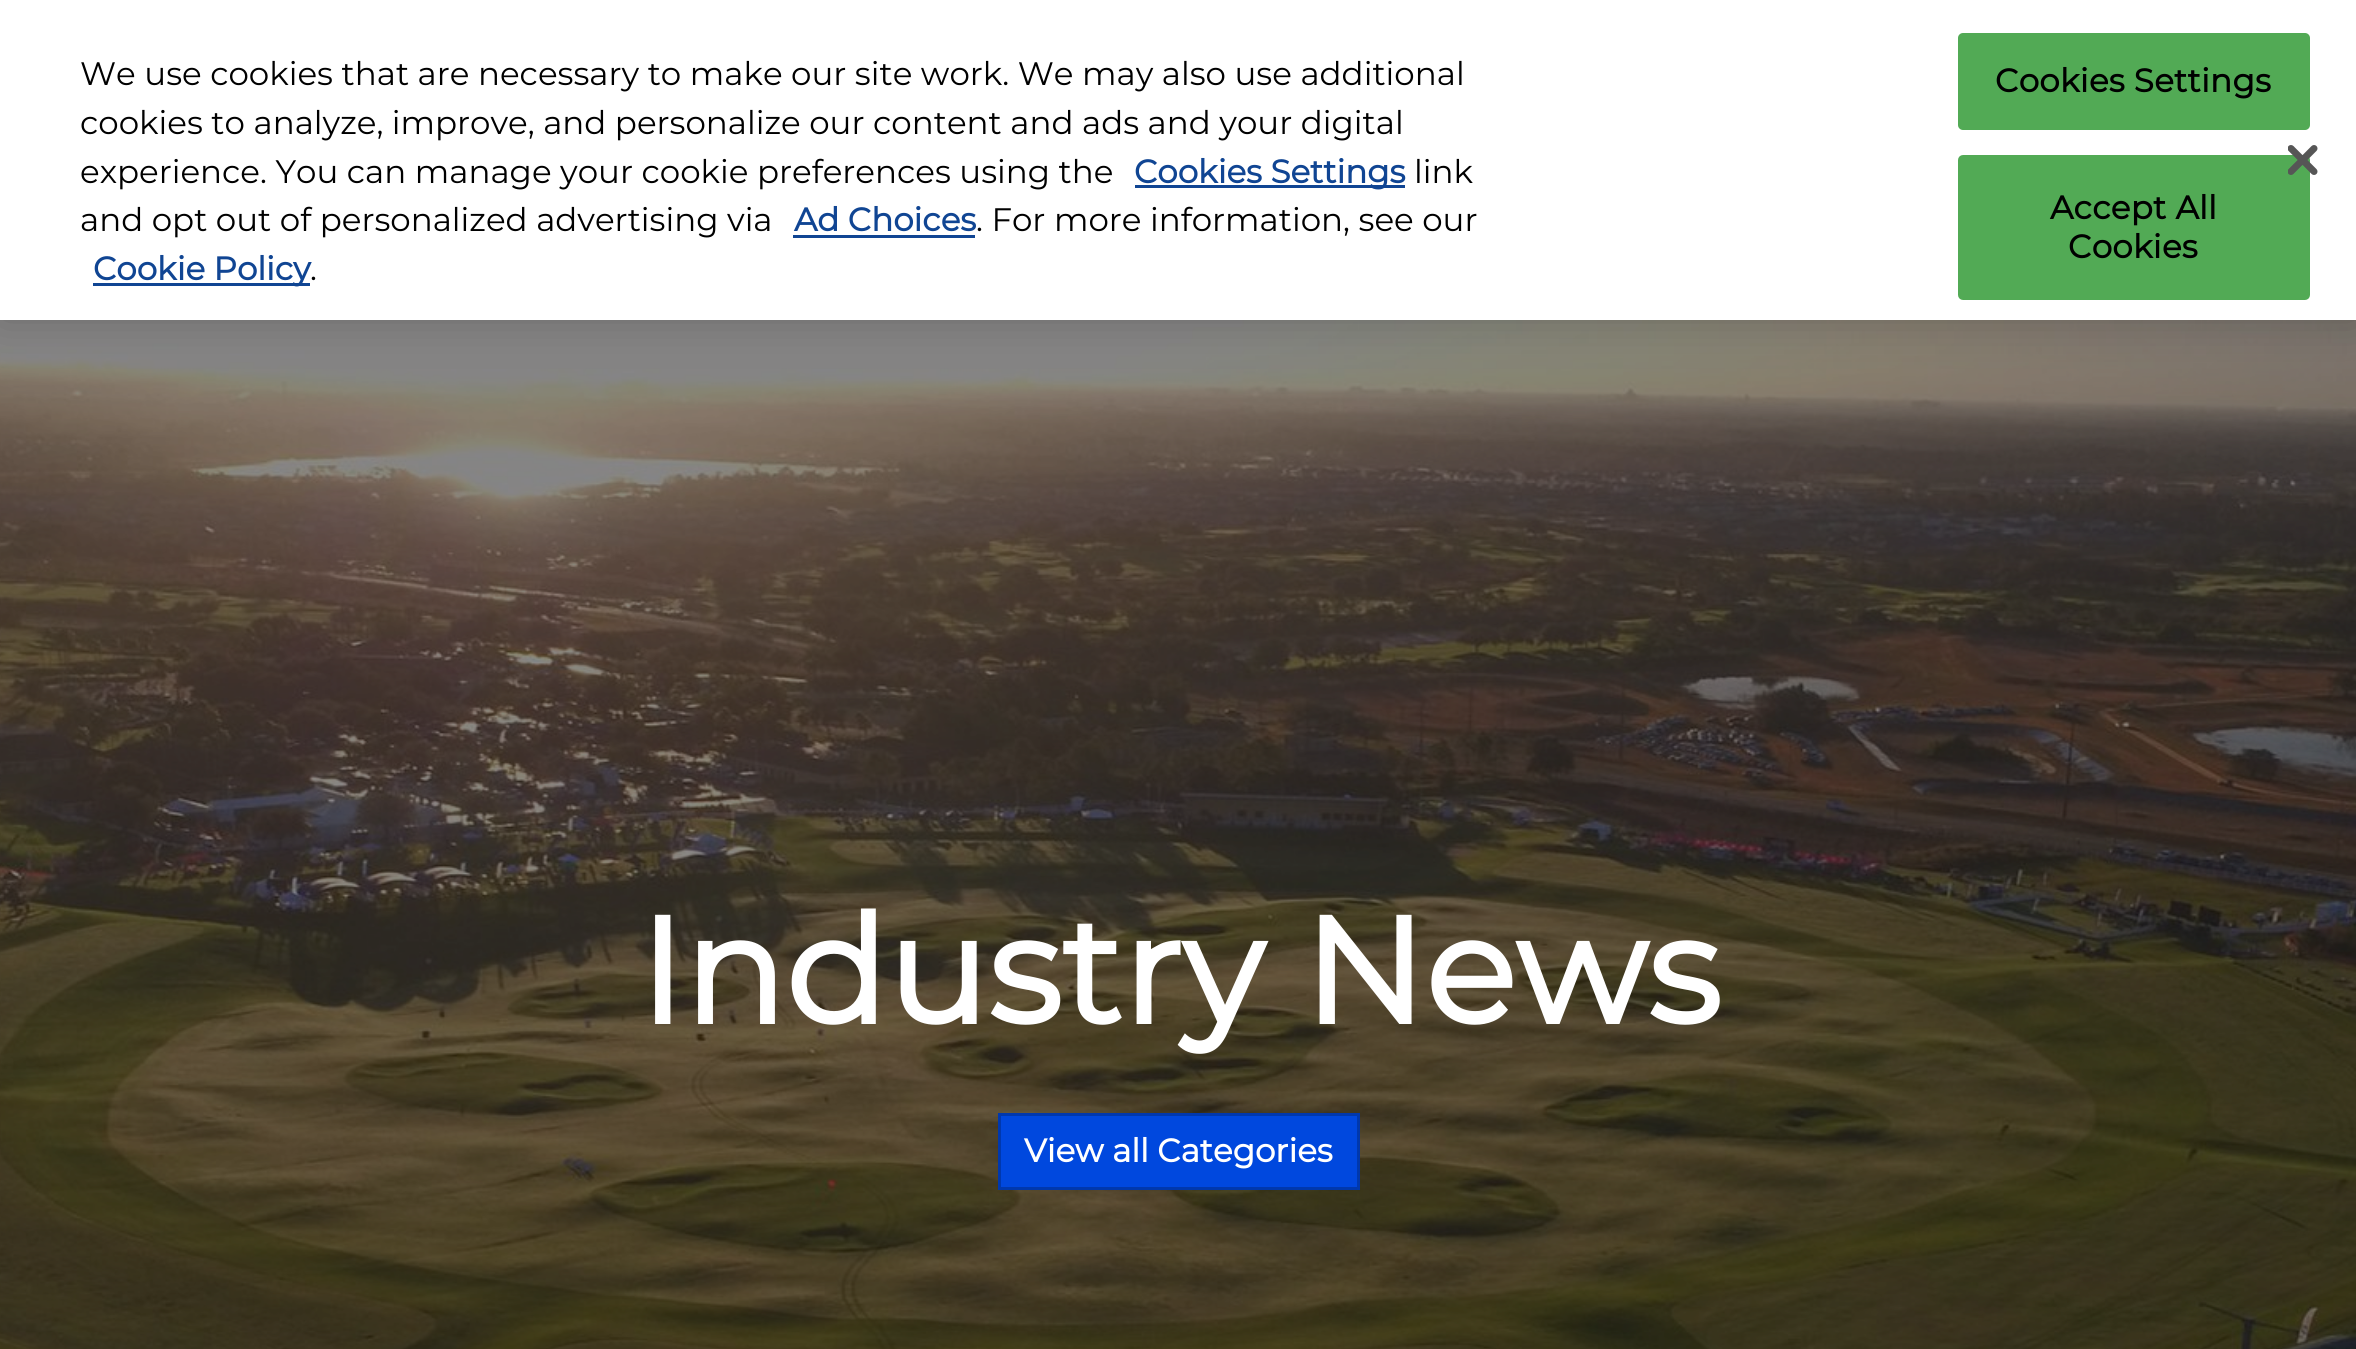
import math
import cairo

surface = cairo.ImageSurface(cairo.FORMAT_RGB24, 2356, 1349)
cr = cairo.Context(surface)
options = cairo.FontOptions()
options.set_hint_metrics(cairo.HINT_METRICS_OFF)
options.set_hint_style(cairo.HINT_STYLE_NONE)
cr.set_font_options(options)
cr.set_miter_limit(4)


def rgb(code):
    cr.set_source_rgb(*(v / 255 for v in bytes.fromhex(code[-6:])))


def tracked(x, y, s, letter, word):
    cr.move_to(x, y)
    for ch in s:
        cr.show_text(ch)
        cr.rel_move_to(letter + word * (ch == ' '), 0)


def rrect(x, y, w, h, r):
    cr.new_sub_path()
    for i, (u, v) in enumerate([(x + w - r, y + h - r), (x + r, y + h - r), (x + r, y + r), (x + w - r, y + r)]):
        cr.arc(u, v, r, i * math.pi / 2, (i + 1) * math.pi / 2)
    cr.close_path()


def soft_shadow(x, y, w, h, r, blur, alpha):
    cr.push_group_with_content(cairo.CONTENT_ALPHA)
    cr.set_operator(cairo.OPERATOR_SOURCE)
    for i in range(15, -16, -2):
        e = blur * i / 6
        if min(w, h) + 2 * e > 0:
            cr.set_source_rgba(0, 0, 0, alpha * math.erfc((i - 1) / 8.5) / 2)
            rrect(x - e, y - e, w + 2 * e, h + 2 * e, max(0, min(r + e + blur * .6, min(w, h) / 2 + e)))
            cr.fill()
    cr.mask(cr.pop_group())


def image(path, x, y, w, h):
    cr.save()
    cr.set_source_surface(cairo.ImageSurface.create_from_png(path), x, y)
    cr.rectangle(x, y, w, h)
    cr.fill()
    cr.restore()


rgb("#ffffff")
cr.paint()
image("img/2.png", 0, 320, 2356, 1029)
rgb("#000000")
soft_shadow(0, 0, 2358, 320, 0, 22.5, 0.2)
for x, y, w, h, color in [
    (0, 0, 2356, 320, "#ffffff"),
    (1135, 185, 270, 3, "#104593"),
    (793, 235, 182, 3, "#104593"),
    (93, 283, 217, 3, "#104593"),
]:
    rgb(color)
    cr.rectangle(x, y, w, h)
    cr.fill()
rgb("#52aa55")
rrect(1958, 33, 352, 97, 5)
cr.fill()
rrect(1959.5, 156.5, 349, 142, 3.5)
cr.fill_preserve()
cr.set_line_width(3)
cr.stroke()
image("img/1.png", 2288, 145, 30, 30)
rgb("#0048de")
cr.rectangle(999.5, 1114.5, 359, 74)
cr.fill_preserve()
rgb("#0038ad")
cr.stroke()
cr.select_font_face("Montserrat")
cr.set_font_size(32.5)
rgb("#000000")
for x, y, s in [
    (80, 85, "We use cookies that are necessary to make our site work. We may also use additional"),
    (80, 134, "cookies to analyze, improve, and personalize our content and ads and your digital"),
    (80, 183, "experience. You can manage your cookie preferences using the"),
]:
    cr.move_to(x, y)
    cr.show_text(s)
cr.select_font_face("Montserrat", cairo.FONT_SLANT_NORMAL, cairo.FONT_WEIGHT_BOLD)
rgb("#104593")
cr.move_to(1134, 183)
cr.show_text("Cookies Settings")
cr.select_font_face("Montserrat")
rgb("#000000")
cr.move_to(1414, 183)
cr.show_text("link")
cr.move_to(80, 231)
cr.show_text("and opt out of personalized advertising via")
cr.select_font_face("Montserrat", cairo.FONT_SLANT_NORMAL, cairo.FONT_WEIGHT_BOLD)
rgb("#104593")
cr.move_to(794, 231)
cr.show_text("Ad Choices")
cr.select_font_face("Montserrat")
rgb("#000000")
cr.move_to(976, 231)
cr.show_text(". For more information, see our")
cr.select_font_face("Montserrat", cairo.FONT_SLANT_NORMAL, cairo.FONT_WEIGHT_BOLD)
rgb("#104593")
cr.move_to(93, 280)
cr.show_text("Cookie Policy")
cr.select_font_face("Montserrat")
rgb("#000000")
cr.move_to(310, 280)
cr.show_text(".")
cr.select_font_face("Montserrat", cairo.FONT_SLANT_NORMAL, cairo.FONT_WEIGHT_BOLD)
for x, y, s in [
    (1995, 92, "Cookies Settings"),
    (2050, 219, "Accept All"),
    (2068, 258, "Cookies"),
]:
    tracked(x, y, s, 0.3, 0)
cr.set_font_size(150)
rgb("#ffffff")
cr.move_to(638, 1024)
cr.show_text("Industry News")
cr.set_font_size(32.5)
cr.move_to(1024, 1162)
cr.show_text("View all Categories")
surface.write_to_png("page.png")
